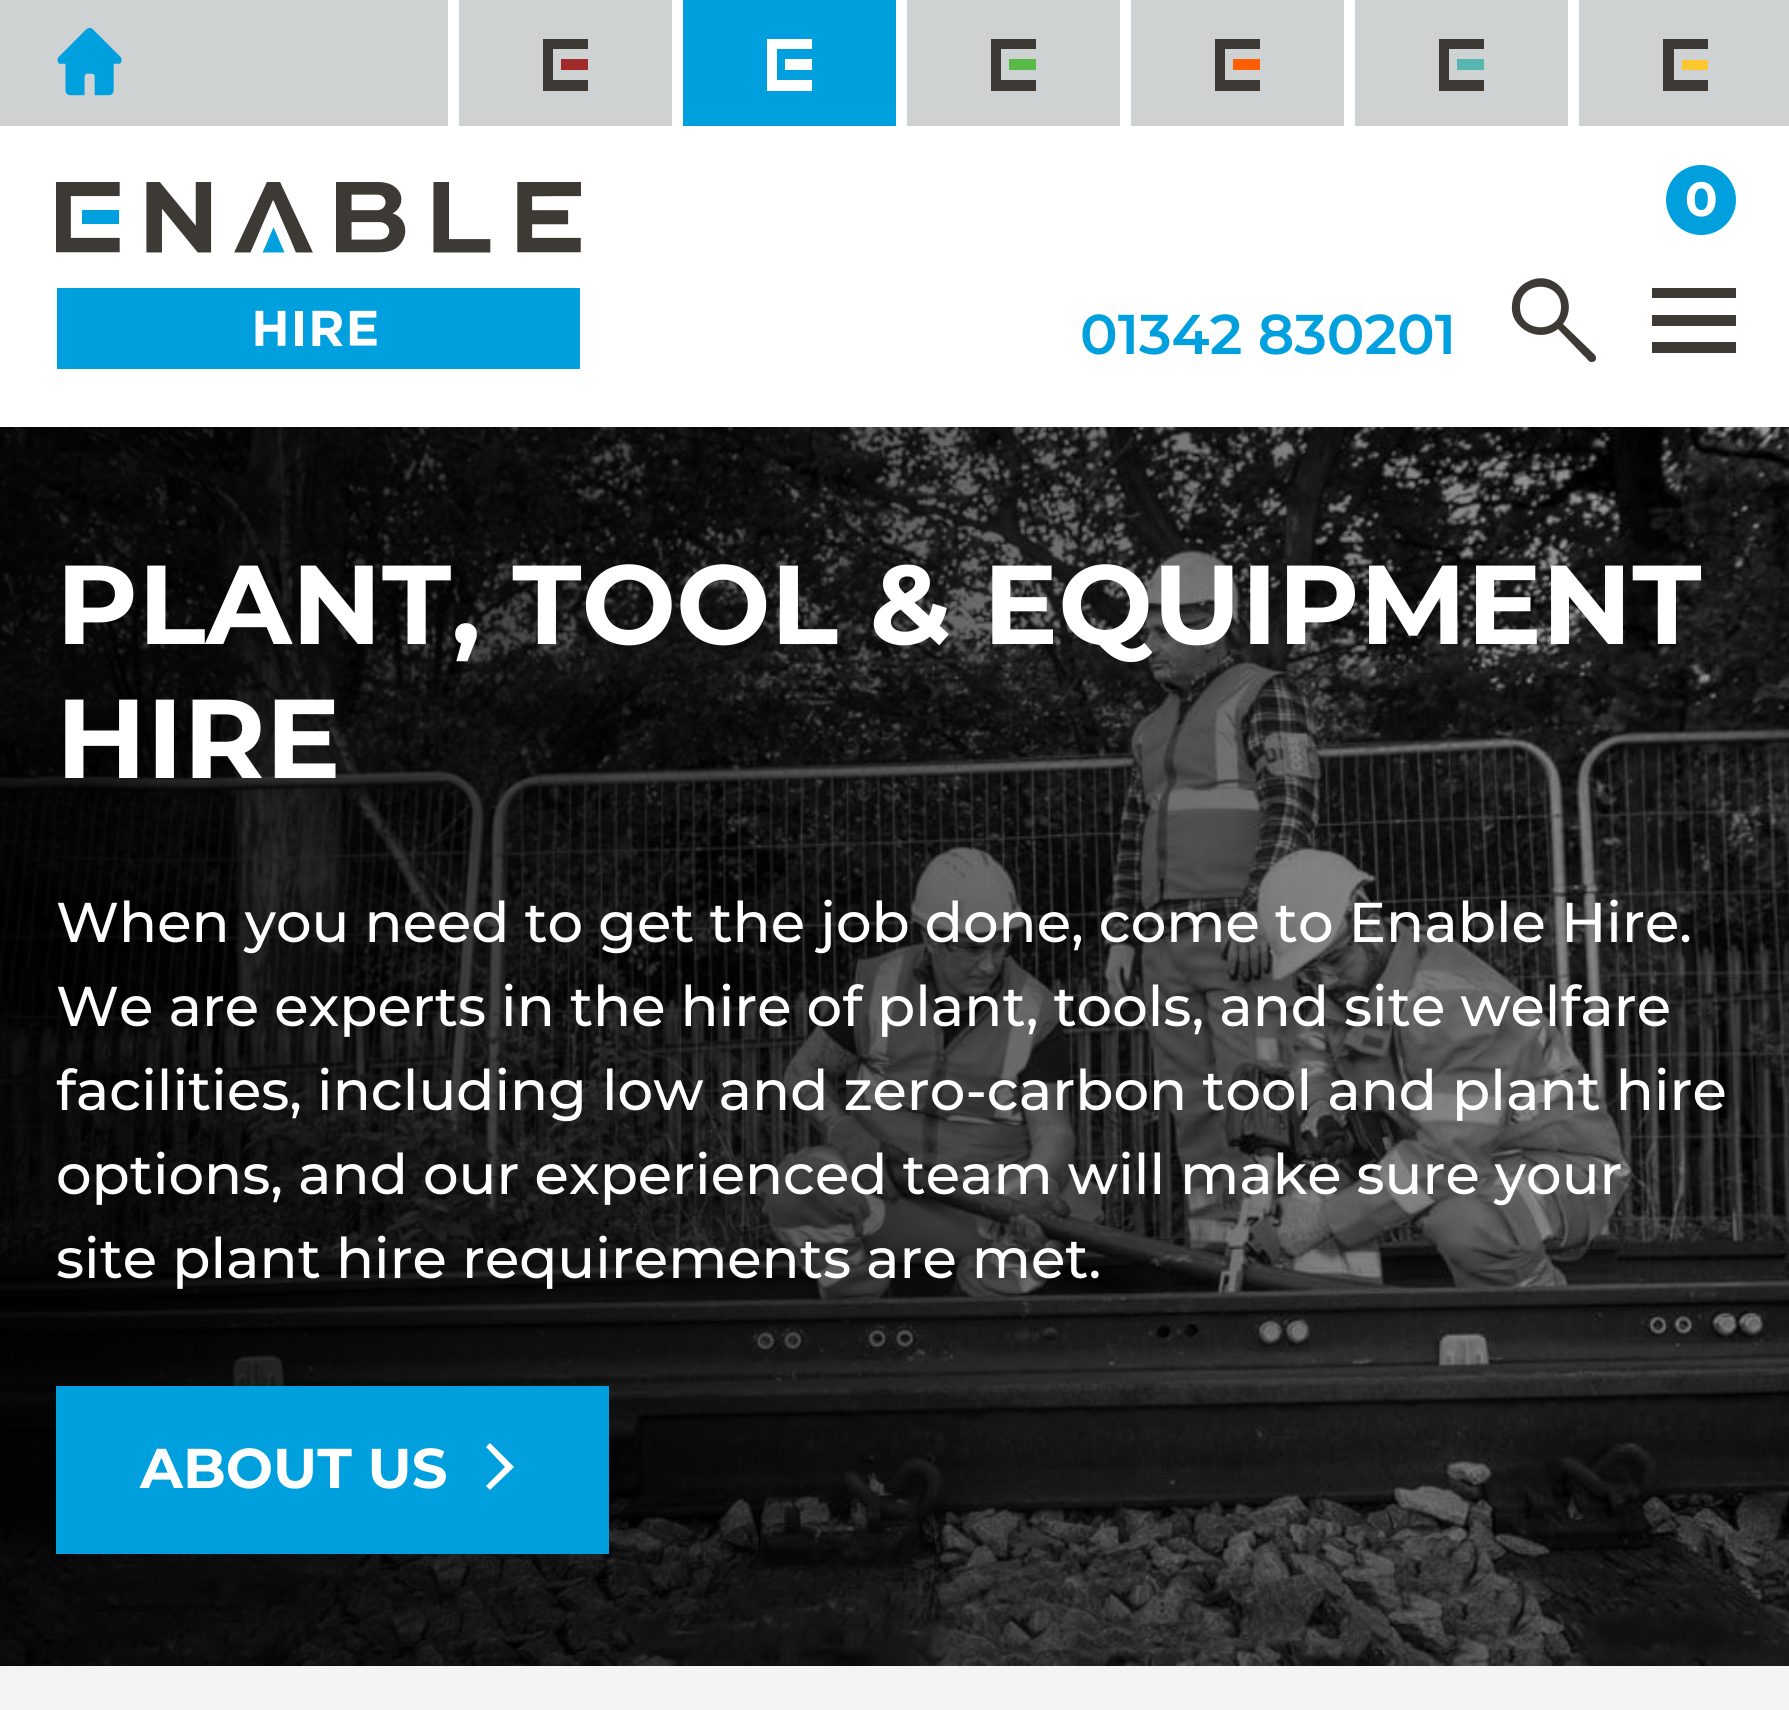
import math
import cairo

surface = cairo.ImageSurface(cairo.FORMAT_RGB24, 1789, 1710)
cr = cairo.Context(surface)
options = cairo.FontOptions()
options.set_hint_metrics(cairo.HINT_METRICS_OFF)
options.set_hint_style(cairo.HINT_STYLE_NONE)
cr.set_font_options(options)
cr.set_miter_limit(4)


def rgb(code):
    cr.set_source_rgb(*(v / 255 for v in bytes.fromhex(code[-6:])))


def image(path, x, y, w, h):
    cr.save()
    cr.set_source_surface(cairo.ImageSurface.create_from_png(path), x, y)
    cr.rectangle(x, y, w, h)
    cr.fill()
    cr.restore()


rgb("#ffffff")
cr.paint()
rgb("#cfd2d3")
cr.rectangle(0, 0, 1789, 126)
cr.fill()
image("img/1.png", 57, 28, 65, 68)
rgb("#ffffff")
cr.rectangle(448, 0, 11, 126)
cr.fill()
cr.save()
cr.rectangle(543, 39, 45, 52)
cr.clip()
rgb("#3d3935")
cr.new_path()
cr.move_to(590, 49)
cr.line_to(590, 38)
cr.line_to(542, 38)
cr.line_to(542, 91)
cr.line_to(590, 91)
cr.line_to(590, 80)
cr.line_to(553, 80)
cr.line_to(553, 49)
cr.close_path()
cr.fill()
cr.restore()
for x, y, w, h, color in [
    (561, 59, 27, 11, "#a12b2a"),
    (683, 0, 213, 126, "#00a0df"),
    (672, 0, 11, 126, "#ffffff"),
]:
    rgb(color)
    cr.rectangle(x, y, w, h)
    cr.fill()
cr.save()
cr.rectangle(767, 39, 45, 52)
cr.clip()
cr.new_path()
cr.move_to(814, 49)
cr.line_to(814, 38)
cr.line_to(766, 38)
cr.line_to(766, 91)
cr.line_to(814, 91)
cr.line_to(814, 80)
cr.line_to(777, 80)
cr.line_to(777, 49)
cr.close_path()
cr.fill()
cr.restore()
cr.rectangle(785, 59, 27, 11)
cr.fill()
cr.rectangle(896, 0, 11, 126)
cr.fill()
cr.save()
cr.rectangle(991, 39, 45, 52)
cr.clip()
rgb("#3d3935")
cr.new_path()
cr.move_to(1038, 49)
cr.line_to(1038, 38)
cr.line_to(990, 38)
cr.line_to(990, 91)
cr.line_to(1038, 91)
cr.line_to(1038, 80)
cr.line_to(1001, 80)
cr.line_to(1001, 49)
cr.close_path()
cr.fill()
cr.restore()
rgb("#58b947")
cr.rectangle(1009, 59, 27, 11)
cr.fill()
rgb("#ffffff")
cr.rectangle(1120, 0, 11, 126)
cr.fill()
cr.save()
cr.rectangle(1215, 39, 45, 52)
cr.clip()
rgb("#3d3935")
cr.new_path()
cr.move_to(1262, 49)
cr.line_to(1262, 38)
cr.line_to(1214, 38)
cr.line_to(1214, 91)
cr.line_to(1262, 91)
cr.line_to(1262, 80)
cr.line_to(1225, 80)
cr.line_to(1225, 49)
cr.close_path()
cr.fill()
cr.restore()
rgb("#ff5f00")
cr.rectangle(1233, 59, 27, 11)
cr.fill()
rgb("#ffffff")
cr.rectangle(1344, 0, 11, 126)
cr.fill()
cr.save()
cr.rectangle(1439, 39, 45, 52)
cr.clip()
rgb("#3d3935")
cr.new_path()
cr.move_to(1486, 49)
cr.line_to(1486, 38)
cr.line_to(1438, 38)
cr.line_to(1438, 91)
cr.line_to(1486, 91)
cr.line_to(1486, 80)
cr.line_to(1449, 80)
cr.line_to(1449, 49)
cr.close_path()
cr.fill()
cr.restore()
rgb("#57b6b2")
cr.rectangle(1457, 59, 27, 11)
cr.fill()
rgb("#ffffff")
cr.rectangle(1568, 0, 11, 126)
cr.fill()
cr.save()
cr.rectangle(1663, 39, 45, 52)
cr.clip()
rgb("#3d3935")
cr.new_path()
cr.move_to(1710, 49)
cr.line_to(1710, 38)
cr.line_to(1662, 38)
cr.line_to(1662, 91)
cr.line_to(1710, 91)
cr.line_to(1710, 80)
cr.line_to(1674, 80)
cr.line_to(1674, 49)
cr.close_path()
cr.fill()
cr.restore()
rgb("#fdc82f")
cr.rectangle(1682, 60, 26, 10)
cr.fill()
image("img/2.png", 56, 182, 525, 187)
rgb("#00a0df")
cr.arc(1701, 200, 35, 0, 2 * math.pi)
cr.fill()
rgb("#3d3935")
cr.new_path()
cr.move_to(1595, 355)
cr.line_to(1563, 324)
cr.curve_to(1581, 300, 1554, 267, 1527, 282)
cr.curve_to(1521, 285, 1517, 290, 1514, 296)
cr.curve_to(1511, 304, 1511, 313, 1515, 320)
cr.curve_to(1524, 335, 1544, 340, 1558, 329)
cr.line_to(1584, 356)
cr.curve_to(1586, 357, 1589, 363, 1592, 362)
cr.curve_to(1596, 362, 1597, 358, 1595, 355)
cr.close_path()
cr.move_to(1520, 307)
cr.curve_to(1520, 280, 1561, 280, 1561, 307)
cr.curve_to(1561, 334, 1520, 334, 1520, 307)
cr.close_path()
cr.fill()
cr.new_path()
cr.move_to(1652, 288)
cr.line_to(1736, 288)
cr.line_to(1736, 298)
cr.line_to(1652, 298)
cr.close_path()
cr.move_to(1652, 315)
cr.line_to(1736, 315)
cr.line_to(1736, 326)
cr.line_to(1652, 326)
cr.close_path()
cr.move_to(1652, 342)
cr.line_to(1736, 342)
cr.line_to(1736, 353)
cr.line_to(1652, 353)
cr.close_path()
cr.fill()
image("img/3.png", 0, 427, 1789, 1239)
rgb("#00a0df")
cr.rectangle(56, 1386, 553, 168)
cr.fill()
rgb("#ffffff")
cr.new_path()
cr.move_to(505, 1467)
cr.line_to(486, 1447)
cr.line_to(490, 1443)
cr.line_to(514, 1467)
cr.line_to(490, 1490)
cr.line_to(486, 1486)
cr.close_path()
cr.fill()
rgb("#f3f4f5")
cr.rectangle(0, 1666, 1789, 44)
cr.fill()
cr.select_font_face("Montserrat", cairo.FONT_SLANT_NORMAL, cairo.FONT_WEIGHT_BOLD)
cr.set_font_size(48)
rgb("#ffffff")
cr.move_to(1685, 216)
cr.show_text("0")
cr.select_font_face("Montserrat SemiBold")
cr.set_font_size(56)
rgb("#00a0df")
cr.move_to(1080, 354)
cr.show_text("01342 830201")
cr.select_font_face("Montserrat", cairo.FONT_SLANT_NORMAL, cairo.FONT_WEIGHT_BOLD)
cr.set_font_size(112)
rgb("#ffffff")
cr.move_to(56, 644)
cr.show_text("PLANT, TOOL & EQUIPMENT")
cr.move_to(56, 778)
cr.show_text("HIRE")
cr.select_font_face("Montserrat Medium")
cr.set_font_size(56)
for x, y, s in [
    (56, 942, "When you need to get the job done, come to Enable Hire."),
    (56, 1026, "We are experts in the hire of plant, tools, and site welfare"),
    (56, 1110, "facilities, including low and zero-carbon tool and plant hire"),
    (56, 1194, "options, and our experienced team will make sure your"),
    (56, 1278, "site plant hire requirements are met."),
]:
    cr.move_to(x, y)
    cr.show_text(s)
cr.select_font_face("Montserrat", cairo.FONT_SLANT_NORMAL, cairo.FONT_WEIGHT_BOLD)
cr.move_to(140, 1488)
cr.show_text("ABOUT US")
surface.write_to_png("page.png")
